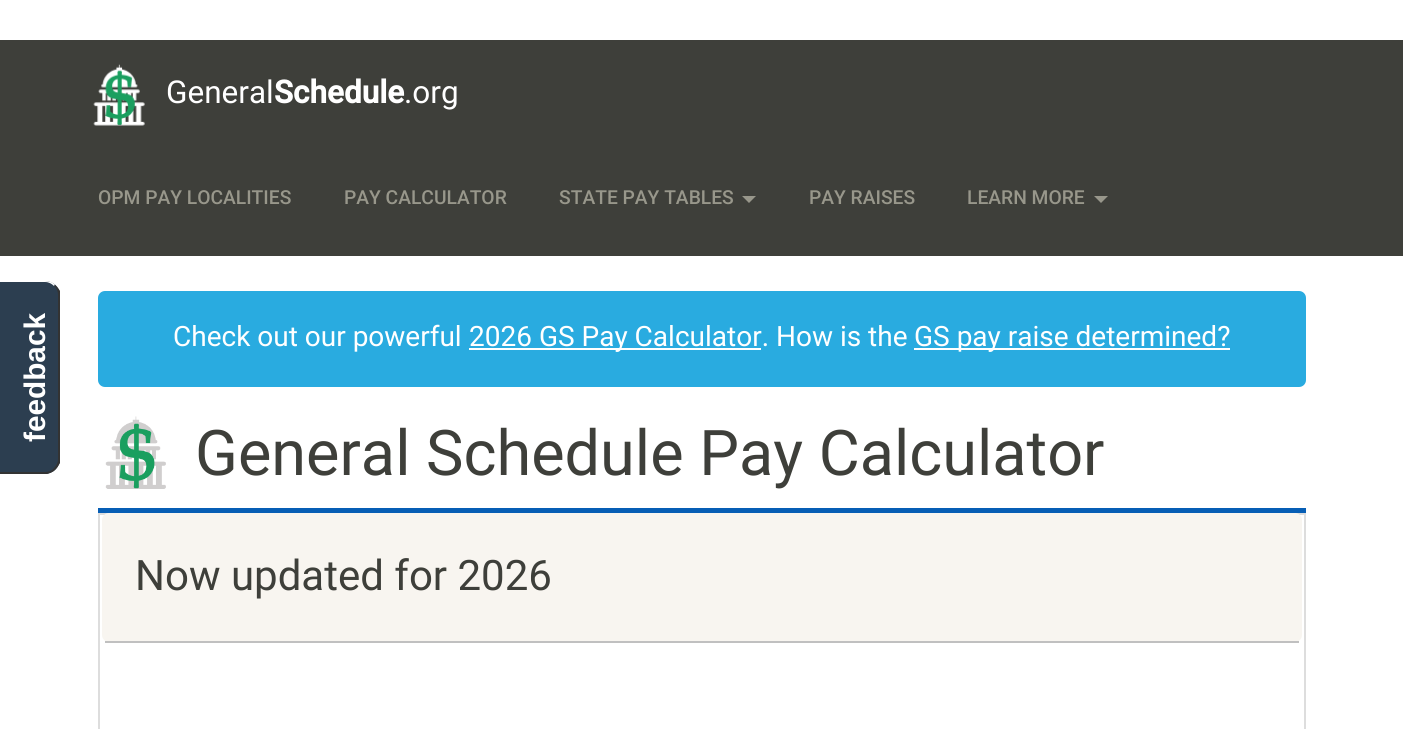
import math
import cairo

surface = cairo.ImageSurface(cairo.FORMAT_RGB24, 1403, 729)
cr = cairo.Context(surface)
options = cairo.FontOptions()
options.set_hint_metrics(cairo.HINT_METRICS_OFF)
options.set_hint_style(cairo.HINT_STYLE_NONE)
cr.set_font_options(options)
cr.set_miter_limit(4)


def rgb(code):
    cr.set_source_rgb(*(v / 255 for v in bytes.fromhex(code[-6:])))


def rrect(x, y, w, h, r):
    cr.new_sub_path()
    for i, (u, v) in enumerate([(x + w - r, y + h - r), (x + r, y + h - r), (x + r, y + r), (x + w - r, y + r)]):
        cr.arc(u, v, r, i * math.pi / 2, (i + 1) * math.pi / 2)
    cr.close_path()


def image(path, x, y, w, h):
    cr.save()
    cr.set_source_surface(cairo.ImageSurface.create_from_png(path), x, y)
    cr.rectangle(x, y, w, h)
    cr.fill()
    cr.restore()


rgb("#ffffff")
cr.paint()
rgb("#3e3f3a")
cr.rectangle(0, 40, 1403, 216)
cr.fill()
image("img/1.png", 93, 64, 52, 62)
rgb("#98978b")
cr.new_path()
cr.move_to(742, 196)
cr.line_to(756, 196)
cr.line_to(749, 203)
cr.close_path()
cr.fill()
cr.new_path()
cr.move_to(1094, 196)
cr.line_to(1108, 196)
cr.line_to(1101, 203)
cr.close_path()
cr.fill()
rgb("#2c3e50")
cr.new_path()
cr.move_to(0, 474)
cr.line_to(0, 281)
cr.line_to(45, 281)
cr.curve_to(53, 281, 60, 287, 60, 295)
cr.line_to(60, 459)
cr.curve_to(60, 467, 53, 474, 45, 474)
cr.close_path()
cr.fill()
rgb("#ffffff")
cr.new_path()
cr.move_to(0, 281)
cr.line_to(0, 282)
cr.line_to(45, 282)
cr.curve_to(49, 282, 52, 284, 54, 286)
cr.line_to(55, 285)
cr.curve_to(53, 282, 49, 281, 45, 281)
cr.close_path()
cr.fill()
rgb("#333333")
cr.new_path()
cr.move_to(55, 285)
cr.curve_to(57, 287, 59, 289, 60, 291)
cr.line_to(60, 463)
cr.curve_to(59, 465, 57, 468, 55, 470)
cr.line_to(54, 468)
cr.curve_to(56, 466, 58, 463, 58, 459)
cr.line_to(58, 295)
cr.curve_to(58, 292, 57, 288, 54, 286)
cr.close_path()
cr.fill()
cr.new_path()
cr.move_to(0, 472)
cr.line_to(45, 472)
cr.curve_to(48, 472, 52, 471, 54, 468)
cr.line_to(55, 470)
cr.curve_to(53, 472, 50, 473, 47, 474)
cr.line_to(0, 474)
cr.close_path()
cr.fill()
rgb("#29abe0")
rrect(98, 291, 1208, 96, 7)
cr.fill()
for x, y, w, h, color in [
    (469, 348, 292, 2, "#ffffff"),
    (914, 348, 316, 2, "#ffffff"),
    (98, 508, 1208, 5, "#075eb5"),
]:
    rgb(color)
    cr.rectangle(x, y, w, h)
    cr.fill()
image("img/2.png", 105, 416, 61, 73)
cr.rectangle(99, 514, 1206, 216)
rgb("#dddddd")
cr.stroke()
rgb("#f8f5f0")
rrect(102, 513, 1200, 129, 7)
cr.fill()
rgb("#c0c0c0")
cr.rectangle(105, 641, 1194, 2)
cr.fill()
cr.select_font_face("Roboto")
cr.set_font_size(31.5)
rgb("#ffffff")
cr.move_to(166, 103)
cr.show_text("General")
cr.select_font_face("Roboto", cairo.FONT_SLANT_NORMAL, cairo.FONT_WEIGHT_BOLD)
cr.move_to(274, 103)
cr.show_text("Schedule")
cr.select_font_face("Roboto")
cr.move_to(404, 103)
cr.show_text(".org")
cr.select_font_face("Roboto Medium")
cr.set_font_size(19.25)
rgb("#98978b")
for x, y, s in [
    (98, 204, "OPM PAY LOCALITIES"),
    (344, 204, "PAY CALCULATOR"),
    (559, 204, "STATE PAY TABLES"),
    (809, 204, "PAY RAISES"),
    (967, 204, "LEARN MORE"),
]:
    cr.move_to(x, y)
    cr.show_text(s)
cr.select_font_face("Liberation Sans", cairo.FONT_SLANT_NORMAL, cairo.FONT_WEIGHT_BOLD)
cr.set_font_size(29.75)
rgb("#ffffff")
cr.save()
cr.translate(45, 442)
cr.rotate(-90 * math.pi / 180)
cr.move_to(0, 0)
cr.show_text("feedback")
cr.restore()
cr.select_font_face("Roboto")
cr.set_font_size(28)
for x, y, s in [
    (173, 346, "Check out our powerful"),
    (469, 346, "2026 GS Pay Calculator. How is the"),
    (914, 346, "GS pay raise determined?"),
]:
    cr.move_to(x, y)
    cr.show_text(s)
cr.set_font_size(63)
rgb("#3e3f3a")
cr.move_to(195, 475)
cr.show_text("General Schedule Pay Calculator")
cr.set_font_size(42)
cr.move_to(135, 590)
cr.show_text("Now updated for 2026")
surface.write_to_png("page.png")
